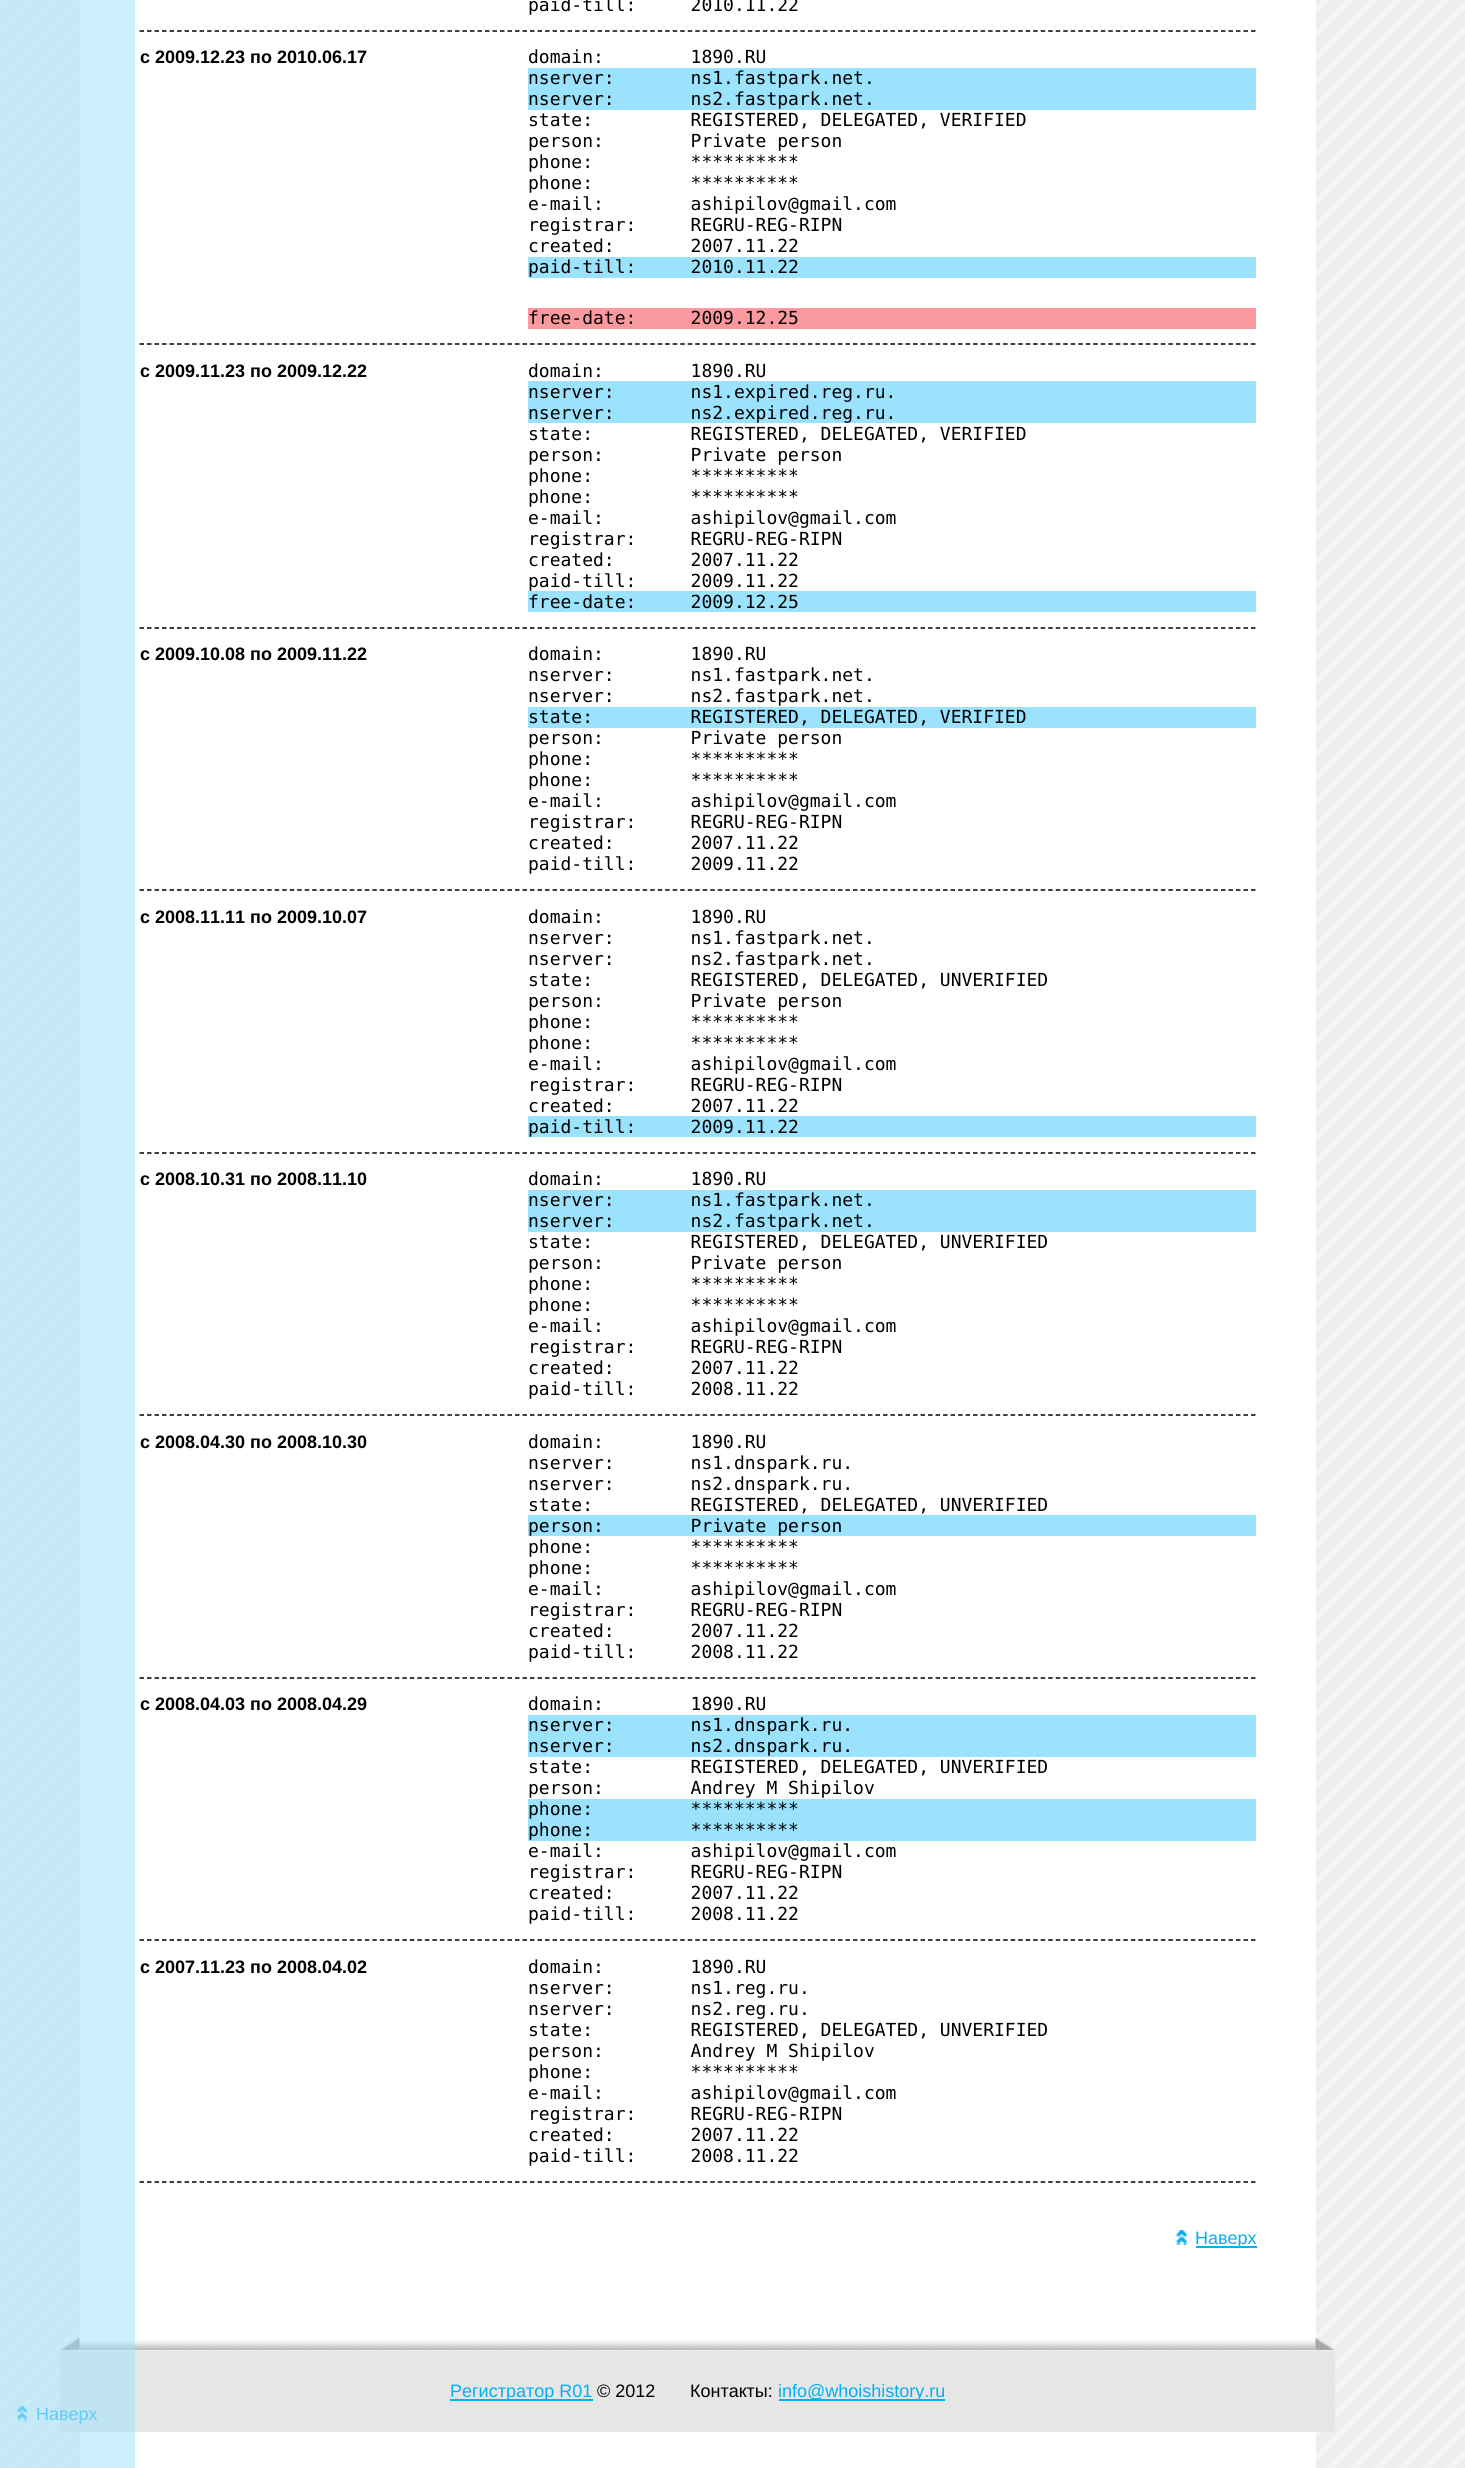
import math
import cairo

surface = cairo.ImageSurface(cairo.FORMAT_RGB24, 1465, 2468)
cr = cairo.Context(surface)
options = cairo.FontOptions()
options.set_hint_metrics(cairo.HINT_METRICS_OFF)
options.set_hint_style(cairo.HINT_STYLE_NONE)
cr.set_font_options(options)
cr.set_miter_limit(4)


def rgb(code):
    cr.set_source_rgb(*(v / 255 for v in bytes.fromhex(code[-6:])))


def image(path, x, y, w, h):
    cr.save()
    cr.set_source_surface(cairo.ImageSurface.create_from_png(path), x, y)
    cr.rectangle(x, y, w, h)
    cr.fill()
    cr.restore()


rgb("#ffffff")
cr.paint()
image("img/1.png", 0, 0, 1465, 2468)
rgb("#ffffff")
cr.rectangle(80, 0, 1236, 2339)
cr.fill()
cr.new_path()
cr.move_to(139.5, 31)
cr.line_to(1255.5, 31)
rgb("#000000")
cr.set_line_width(1.5)
cr.set_dash([4.5, 3.01])
cr.stroke()
for x, y, w, h, color in [
    (528, 68, 728, 42, "#9be2fd"),
    (528, 257, 728, 21, "#9be2fd"),
    (528, 308, 728, 21, "#fa9a9f"),
]:
    rgb(color)
    cr.rectangle(x, y, w, h)
    cr.fill()
cr.new_path()
cr.move_to(139.5, 344)
cr.line_to(1255.5, 344)
rgb("#000000")
cr.stroke()
rgb("#9be2fd")
cr.rectangle(528, 381, 728, 42)
cr.fill()
cr.rectangle(528, 591, 728, 21)
cr.fill()
cr.new_path()
cr.move_to(139.5, 628)
cr.line_to(1255.5, 628)
rgb("#000000")
cr.stroke()
rgb("#9be2fd")
cr.rectangle(528, 707, 728, 21)
cr.fill()
cr.new_path()
cr.move_to(139.5, 890)
cr.line_to(1255.5, 890)
rgb("#000000")
cr.stroke()
rgb("#9be2fd")
cr.rectangle(528, 1116, 728, 21)
cr.fill()
cr.new_path()
cr.move_to(139.5, 1153)
cr.line_to(1255.5, 1153)
rgb("#000000")
cr.stroke()
rgb("#9be2fd")
cr.rectangle(528, 1190, 728, 42)
cr.fill()
cr.new_path()
cr.move_to(139.5, 1415)
cr.line_to(1255.5, 1415)
rgb("#000000")
cr.stroke()
rgb("#9be2fd")
cr.rectangle(528, 1515, 728, 21)
cr.fill()
cr.new_path()
cr.move_to(139.5, 1678)
cr.line_to(1255.5, 1678)
rgb("#000000")
cr.stroke()
rgb("#9be2fd")
cr.rectangle(528, 1715, 728, 42)
cr.fill()
cr.rectangle(528, 1799, 728, 42)
cr.fill()
cr.new_path()
cr.move_to(139.5, 1940)
cr.line_to(1255.5, 1940)
rgb("#000000")
cr.stroke()
cr.new_path()
cr.move_to(139.5, 2182)
cr.line_to(1255.5, 2182)
cr.stroke()
image("img/2.png", 1175, 2230, 13, 15)
rgb("#00b1f2")
cr.rectangle(1196, 2246, 61, 2)
cr.fill()
image("img/4.png", 79, 2338, 1237, 12)
image("img/3.png", 60, 2338, 20, 12)
image("img/5.png", 1315, 2338, 19, 12)
rgb("#e6e6e6")
cr.rectangle(60, 2351, 1275, 81)
cr.fill()
rgb("#00b1f2")
cr.rectangle(450, 2399, 143, 2)
cr.rectangle(779, 2399, 166, 2)
cr.fill()
rgb("#ffffff")
cr.rectangle(80, 2432, 1236, 36)
cr.fill()
cr.set_source_rgba(0.608, 0.886, 0.992, 0.5)
cr.rectangle(0, 0, 135, 2468)
cr.fill()
image("img/6.png", 16, 2405, 13, 17)
cr.select_font_face("DejaVu Sans Mono")
cr.set_font_size(18)
rgb("#000000")
cr.move_to(528, 11)
cr.show_text("paid-till:     2010.11.22")
cr.select_font_face("Liberation Sans", cairo.FONT_SLANT_NORMAL, cairo.FONT_WEIGHT_BOLD)
cr.move_to(140, 63)
cr.show_text("с 2009.12.23 по 2010.06.17")
cr.select_font_face("DejaVu Sans Mono")
for x, y, s in [
    (528, 63, "domain:        1890.RU"),
    (528, 84, "nserver:       ns1.fastpark.net."),
    (528, 105, "nserver:       ns2.fastpark.net."),
    (528, 126, "state:         REGISTERED, DELEGATED, VERIFIED"),
    (528, 147, "person:        Private person"),
    (528, 168, "phone:         **********"),
    (528, 189, "phone:         **********"),
    (528, 210, "e-mail:        ashipilov@gmail.com"),
    (528, 231, "registrar:     REGRU-REG-RIPN"),
    (528, 252, "created:       2007.11.22"),
    (528, 273, "paid-till:     2010.11.22"),
    (528, 324, "free-date:     2009.12.25"),
]:
    cr.move_to(x, y)
    cr.show_text(s)
cr.select_font_face("Liberation Sans", cairo.FONT_SLANT_NORMAL, cairo.FONT_WEIGHT_BOLD)
cr.move_to(140, 377)
cr.show_text("с 2009.11.23 по 2009.12.22")
cr.select_font_face("DejaVu Sans Mono")
for x, y, s in [
    (528, 377, "domain:        1890.RU"),
    (528, 398, "nserver:       ns1.expired.reg.ru."),
    (528, 419, "nserver:       ns2.expired.reg.ru."),
    (528, 440, "state:         REGISTERED, DELEGATED, VERIFIED"),
    (528, 461, "person:        Private person"),
    (528, 482, "phone:         **********"),
    (528, 503, "phone:         **********"),
    (528, 524, "e-mail:        ashipilov@gmail.com"),
    (528, 545, "registrar:     REGRU-REG-RIPN"),
    (528, 566, "created:       2007.11.22"),
    (528, 587, "paid-till:     2009.11.22"),
    (528, 608, "free-date:     2009.12.25"),
]:
    cr.move_to(x, y)
    cr.show_text(s)
cr.select_font_face("Liberation Sans", cairo.FONT_SLANT_NORMAL, cairo.FONT_WEIGHT_BOLD)
cr.move_to(140, 660)
cr.show_text("с 2009.10.08 по 2009.11.22")
cr.select_font_face("DejaVu Sans Mono")
for x, y, s in [
    (528, 660, "domain:        1890.RU"),
    (528, 681, "nserver:       ns1.fastpark.net."),
    (528, 702, "nserver:       ns2.fastpark.net."),
    (528, 723, "state:         REGISTERED, DELEGATED, VERIFIED"),
    (528, 744, "person:        Private person"),
    (528, 765, "phone:         **********"),
    (528, 786, "phone:         **********"),
    (528, 807, "e-mail:        ashipilov@gmail.com"),
    (528, 828, "registrar:     REGRU-REG-RIPN"),
    (528, 849, "created:       2007.11.22"),
    (528, 870, "paid-till:     2009.11.22"),
]:
    cr.move_to(x, y)
    cr.show_text(s)
cr.select_font_face("Liberation Sans", cairo.FONT_SLANT_NORMAL, cairo.FONT_WEIGHT_BOLD)
cr.move_to(140, 923)
cr.show_text("с 2008.11.11 по 2009.10.07")
cr.select_font_face("DejaVu Sans Mono")
for x, y, s in [
    (528, 923, "domain:        1890.RU"),
    (528, 944, "nserver:       ns1.fastpark.net."),
    (528, 965, "nserver:       ns2.fastpark.net."),
    (528, 986, "state:         REGISTERED, DELEGATED, UNVERIFIED"),
    (528, 1007, "person:        Private person"),
    (528, 1028, "phone:         **********"),
    (528, 1049, "phone:         **********"),
    (528, 1070, "e-mail:        ashipilov@gmail.com"),
    (528, 1091, "registrar:     REGRU-REG-RIPN"),
    (528, 1112, "created:       2007.11.22"),
    (528, 1133, "paid-till:     2009.11.22"),
]:
    cr.move_to(x, y)
    cr.show_text(s)
cr.select_font_face("Liberation Sans", cairo.FONT_SLANT_NORMAL, cairo.FONT_WEIGHT_BOLD)
cr.move_to(140, 1185)
cr.show_text("с 2008.10.31 по 2008.11.10")
cr.select_font_face("DejaVu Sans Mono")
for x, y, s in [
    (528, 1185, "domain:        1890.RU"),
    (528, 1206, "nserver:       ns1.fastpark.net."),
    (528, 1227, "nserver:       ns2.fastpark.net."),
    (528, 1248, "state:         REGISTERED, DELEGATED, UNVERIFIED"),
    (528, 1269, "person:        Private person"),
    (528, 1290, "phone:         **********"),
    (528, 1311, "phone:         **********"),
    (528, 1332, "e-mail:        ashipilov@gmail.com"),
    (528, 1353, "registrar:     REGRU-REG-RIPN"),
    (528, 1374, "created:       2007.11.22"),
    (528, 1395, "paid-till:     2008.11.22"),
]:
    cr.move_to(x, y)
    cr.show_text(s)
cr.select_font_face("Liberation Sans", cairo.FONT_SLANT_NORMAL, cairo.FONT_WEIGHT_BOLD)
cr.move_to(140, 1448)
cr.show_text("с 2008.04.30 по 2008.10.30")
cr.select_font_face("DejaVu Sans Mono")
for x, y, s in [
    (528, 1448, "domain:        1890.RU"),
    (528, 1469, "nserver:       ns1.dnspark.ru."),
    (528, 1490, "nserver:       ns2.dnspark.ru."),
    (528, 1511, "state:         REGISTERED, DELEGATED, UNVERIFIED"),
    (528, 1532, "person:        Private person"),
    (528, 1553, "phone:         **********"),
    (528, 1574, "phone:         **********"),
    (528, 1595, "e-mail:        ashipilov@gmail.com"),
    (528, 1616, "registrar:     REGRU-REG-RIPN"),
    (528, 1637, "created:       2007.11.22"),
    (528, 1658, "paid-till:     2008.11.22"),
]:
    cr.move_to(x, y)
    cr.show_text(s)
cr.select_font_face("Liberation Sans", cairo.FONT_SLANT_NORMAL, cairo.FONT_WEIGHT_BOLD)
cr.move_to(140, 1710)
cr.show_text("с 2008.04.03 по 2008.04.29")
cr.select_font_face("DejaVu Sans Mono")
for x, y, s in [
    (528, 1710, "domain:        1890.RU"),
    (528, 1731, "nserver:       ns1.dnspark.ru."),
    (528, 1752, "nserver:       ns2.dnspark.ru."),
    (528, 1773, "state:         REGISTERED, DELEGATED, UNVERIFIED"),
    (528, 1794, "person:        Andrey M Shipilov"),
    (528, 1815, "phone:         **********"),
    (528, 1836, "phone:         **********"),
    (528, 1857, "e-mail:        ashipilov@gmail.com"),
    (528, 1878, "registrar:     REGRU-REG-RIPN"),
    (528, 1899, "created:       2007.11.22"),
    (528, 1920, "paid-till:     2008.11.22"),
]:
    cr.move_to(x, y)
    cr.show_text(s)
cr.select_font_face("Liberation Sans", cairo.FONT_SLANT_NORMAL, cairo.FONT_WEIGHT_BOLD)
cr.move_to(140, 1973)
cr.show_text("с 2007.11.23 по 2008.04.02")
cr.select_font_face("DejaVu Sans Mono")
for x, y, s in [
    (528, 1973, "domain:        1890.RU"),
    (528, 1994, "nserver:       ns1.reg.ru."),
    (528, 2015, "nserver:       ns2.reg.ru."),
    (528, 2036, "state:         REGISTERED, DELEGATED, UNVERIFIED"),
    (528, 2057, "person:        Andrey M Shipilov"),
    (528, 2078, "phone:         **********"),
    (528, 2099, "e-mail:        ashipilov@gmail.com"),
    (528, 2120, "registrar:     REGRU-REG-RIPN"),
    (528, 2141, "created:       2007.11.22"),
    (528, 2162, "paid-till:     2008.11.22"),
]:
    cr.move_to(x, y)
    cr.show_text(s)
cr.select_font_face("Liberation Sans")
rgb("#00b1f2")
cr.move_to(1195, 2244)
cr.show_text("Наверх")
cr.move_to(450, 2397)
cr.show_text("Регистратор R01")
rgb("#000000")
cr.move_to(597, 2397)
cr.show_text("© 2012")
cr.move_to(690, 2397)
cr.show_text("Контакты:")
rgb("#00b1f2")
cr.move_to(778, 2397)
cr.show_text("info@whoishistory.ru")
rgb("#61cbf3")
cr.move_to(36, 2420)
cr.show_text("Наверх")
surface.write_to_png("page.png")
